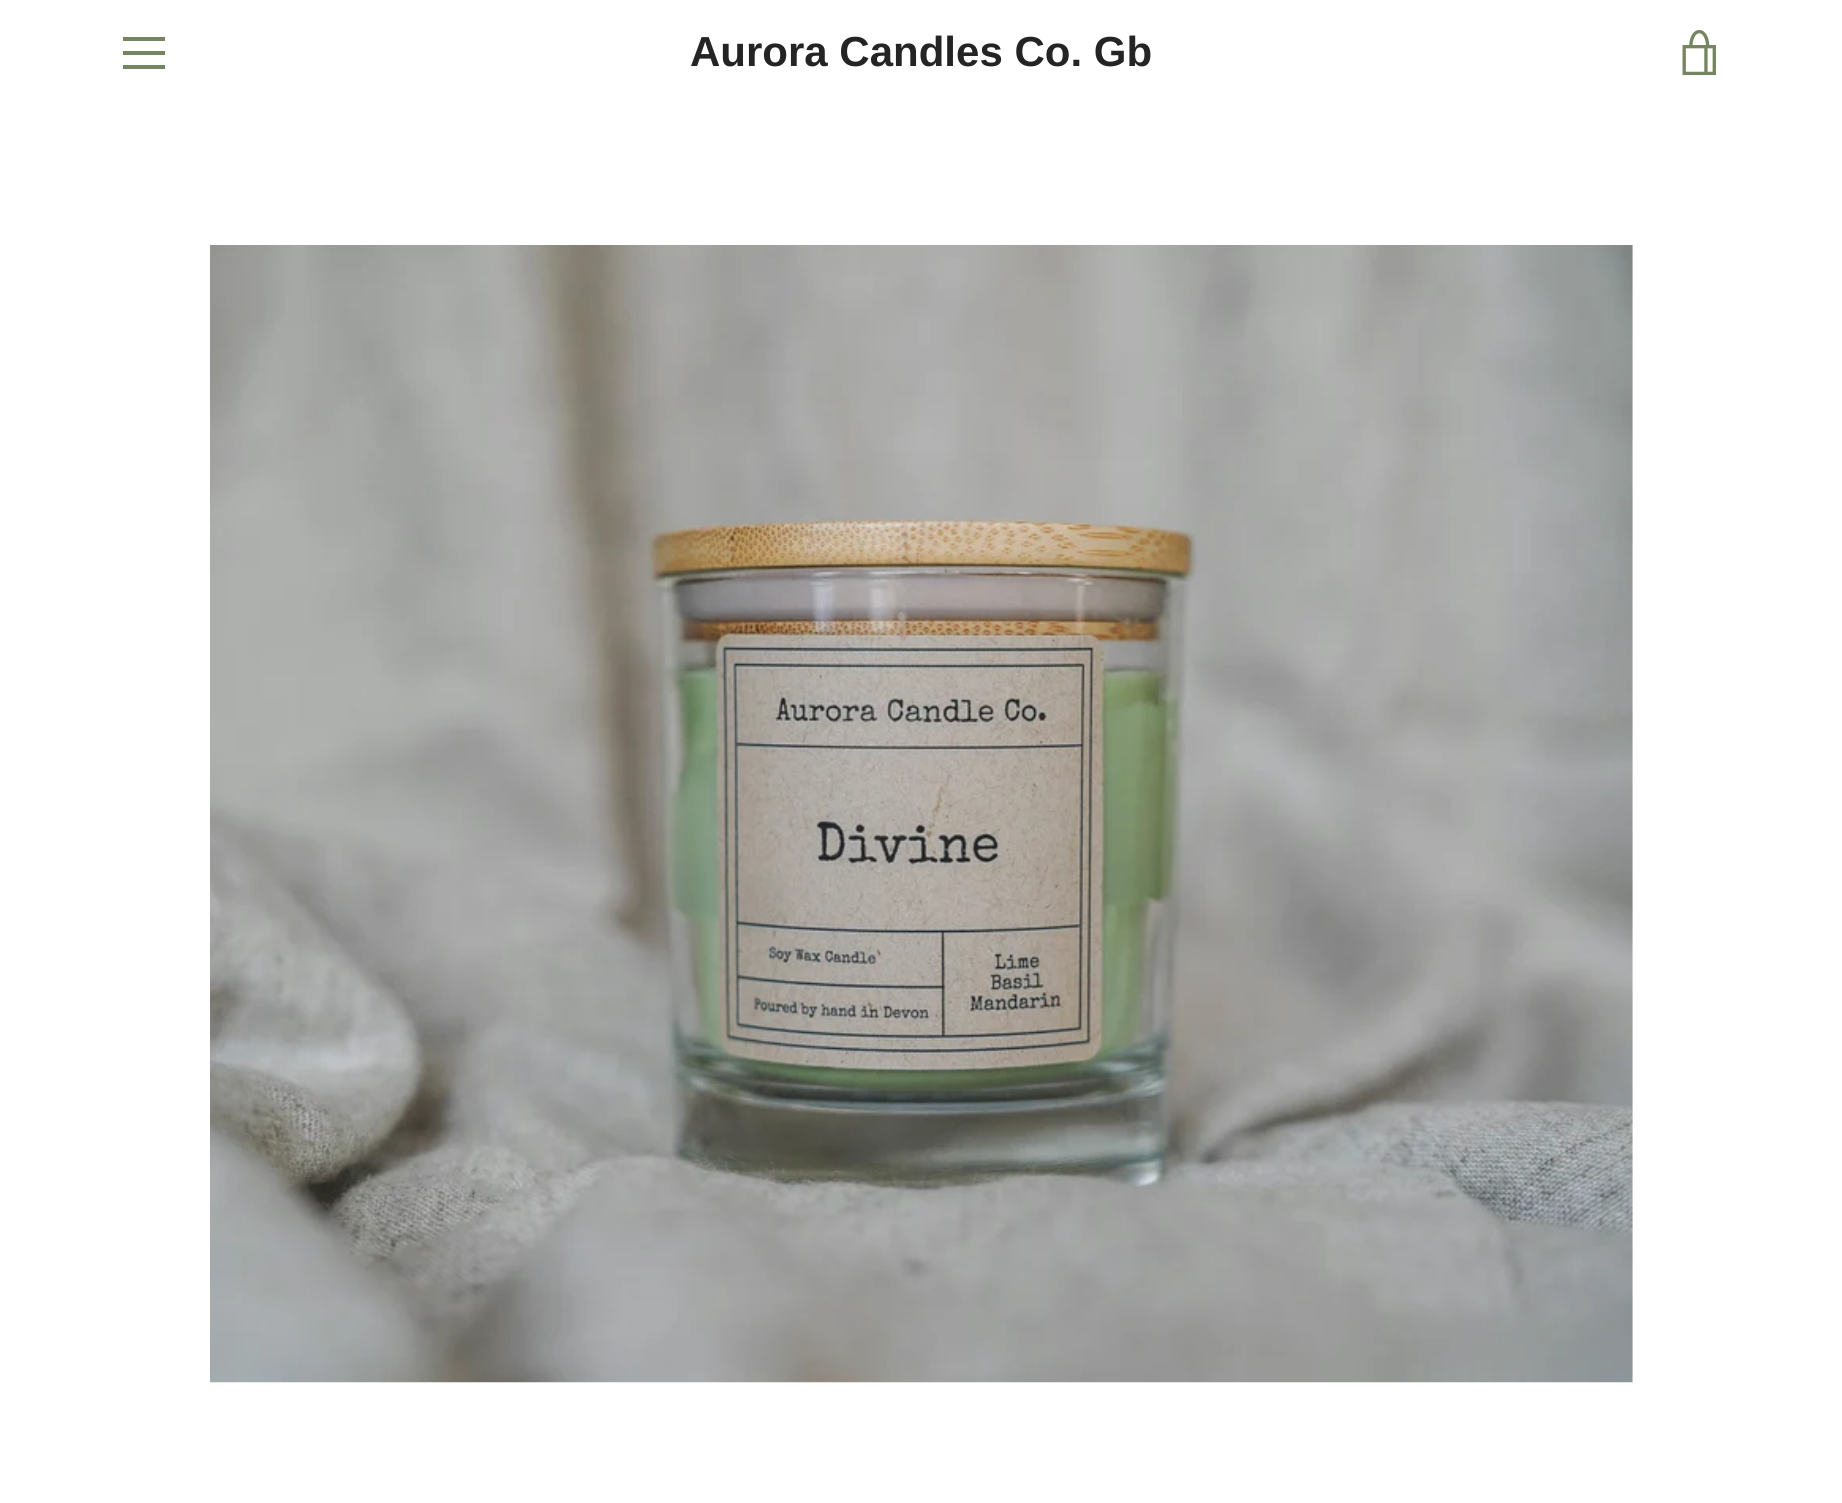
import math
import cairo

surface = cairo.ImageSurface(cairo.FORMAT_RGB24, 1842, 1503)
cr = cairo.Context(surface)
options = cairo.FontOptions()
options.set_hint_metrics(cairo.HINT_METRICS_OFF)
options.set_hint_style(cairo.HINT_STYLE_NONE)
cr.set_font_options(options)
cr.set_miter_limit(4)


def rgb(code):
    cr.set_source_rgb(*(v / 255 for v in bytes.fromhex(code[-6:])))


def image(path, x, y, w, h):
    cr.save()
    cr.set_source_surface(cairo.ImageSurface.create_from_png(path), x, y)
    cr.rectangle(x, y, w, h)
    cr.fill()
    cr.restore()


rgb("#ffffff")
cr.paint()
for x, y, w, h, color in [
    (123, 37, 42, 4, "#758560"),
    (123, 51, 42, 4, "#758560"),
    (123, 65, 42, 4, "#758560"),
]:
    rgb(color)
    cr.rectangle(x, y, w, h)
    cr.fill()
image("img/1.png", 1682, 29, 34, 47)
image("img/2.png", 210, 245, 1423, 1138)
cr.select_font_face("Liberation Sans", cairo.FONT_SLANT_NORMAL, cairo.FONT_WEIGHT_BOLD)
cr.set_font_size(42)
rgb("#242424")
cr.move_to(690, 66)
cr.show_text("Aurora Candles Co. Gb")
surface.write_to_png("page.png")
